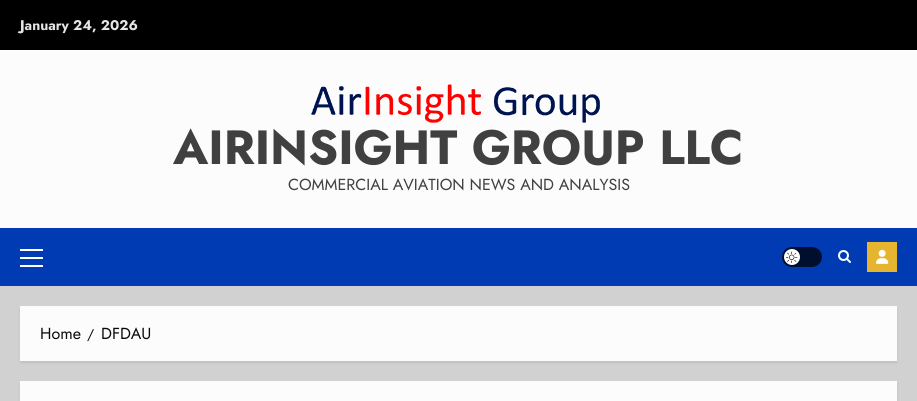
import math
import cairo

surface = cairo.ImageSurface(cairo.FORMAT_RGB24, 917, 401)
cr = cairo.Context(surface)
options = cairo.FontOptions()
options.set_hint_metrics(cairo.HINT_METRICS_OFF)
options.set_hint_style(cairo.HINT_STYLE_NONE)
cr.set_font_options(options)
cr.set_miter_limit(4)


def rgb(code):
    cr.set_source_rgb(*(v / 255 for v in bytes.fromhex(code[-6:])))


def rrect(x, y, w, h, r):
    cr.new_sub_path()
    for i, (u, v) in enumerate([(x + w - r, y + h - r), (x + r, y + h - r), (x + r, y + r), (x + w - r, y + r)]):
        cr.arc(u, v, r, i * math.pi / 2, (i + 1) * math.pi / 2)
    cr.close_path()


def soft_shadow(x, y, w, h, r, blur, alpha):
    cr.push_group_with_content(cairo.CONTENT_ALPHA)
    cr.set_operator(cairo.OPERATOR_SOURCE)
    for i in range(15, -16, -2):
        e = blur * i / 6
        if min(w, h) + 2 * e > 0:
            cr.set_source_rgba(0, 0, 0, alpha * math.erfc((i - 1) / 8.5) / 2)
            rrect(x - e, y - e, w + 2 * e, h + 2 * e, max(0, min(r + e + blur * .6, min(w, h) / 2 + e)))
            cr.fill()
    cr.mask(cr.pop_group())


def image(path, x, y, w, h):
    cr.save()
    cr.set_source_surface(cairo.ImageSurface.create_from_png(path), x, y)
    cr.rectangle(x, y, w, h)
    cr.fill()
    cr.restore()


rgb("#d1d1d1")
cr.paint()
rgb("#000000")
cr.rectangle(0, 0, 917, 50)
cr.fill()
rgb("#fcfcfc")
cr.rectangle(0, 50, 917, 178)
cr.fill()
image("img/1.png", 311, 84, 289, 39)
for x, y, w, h, color in [
    (0, 228, 917, 58, "#003bb3"),
    (20, 257, 23, 2, "#ffffff"),
    (20, 249, 23, 2, "#ffffff"),
    (20, 265, 23, 2, "#ffffff"),
]:
    rgb(color)
    cr.rectangle(x, y, w, h)
    cr.fill()
rgb("#000f2d")
rrect(782, 247, 40, 20, 10)
cr.fill()
rgb("#ffffff")
cr.arc(792, 257, 8, 0, 2 * math.pi)
cr.fill()
image("img/2.png", 786, 251, 12, 12)
image("img/3.png", 838, 250, 13, 13)
rgb("#e6b52f")
cr.rectangle(867, 242, 30, 30)
cr.fill()
image("img/4.png", 876, 249, 13, 15)
rgb("#000000")
soft_shadow(20, 308, 877, 55, 0, 1, 0.08)
rgb("#fcfcfc")
cr.rectangle(20, 306, 877, 55)
cr.fill()
rgb("#000000")
soft_shadow(20, 383, 877, 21, 0, 1, 0.08)
rgb("#fcfcfc")
cr.rectangle(20, 381, 877, 20)
cr.fill()
cr.select_font_face("Jost", cairo.FONT_SLANT_NORMAL, cairo.FONT_WEIGHT_BOLD)
cr.set_font_size(14)
rgb("#e5e5e5")
cr.move_to(20, 30)
cr.show_text("January 24, 2026")
cr.set_font_size(48)
rgb("#404040")
cr.move_to(173, 164)
cr.show_text("AIRINSIGHT GROUP LLC")
cr.select_font_face("Jost")
cr.set_font_size(16)
cr.move_to(288, 190)
cr.show_text("COMMERCIAL AVIATION NEWS AND ANALYSIS")
rgb("#0a0a0a")
cr.move_to(40, 339)
cr.show_text("Home")
cr.set_font_size(14)
cr.move_to(87, 339)
cr.show_text("/")
cr.set_font_size(16)
cr.move_to(101, 339)
cr.show_text("DFDAU")
surface.write_to_png("page.png")
